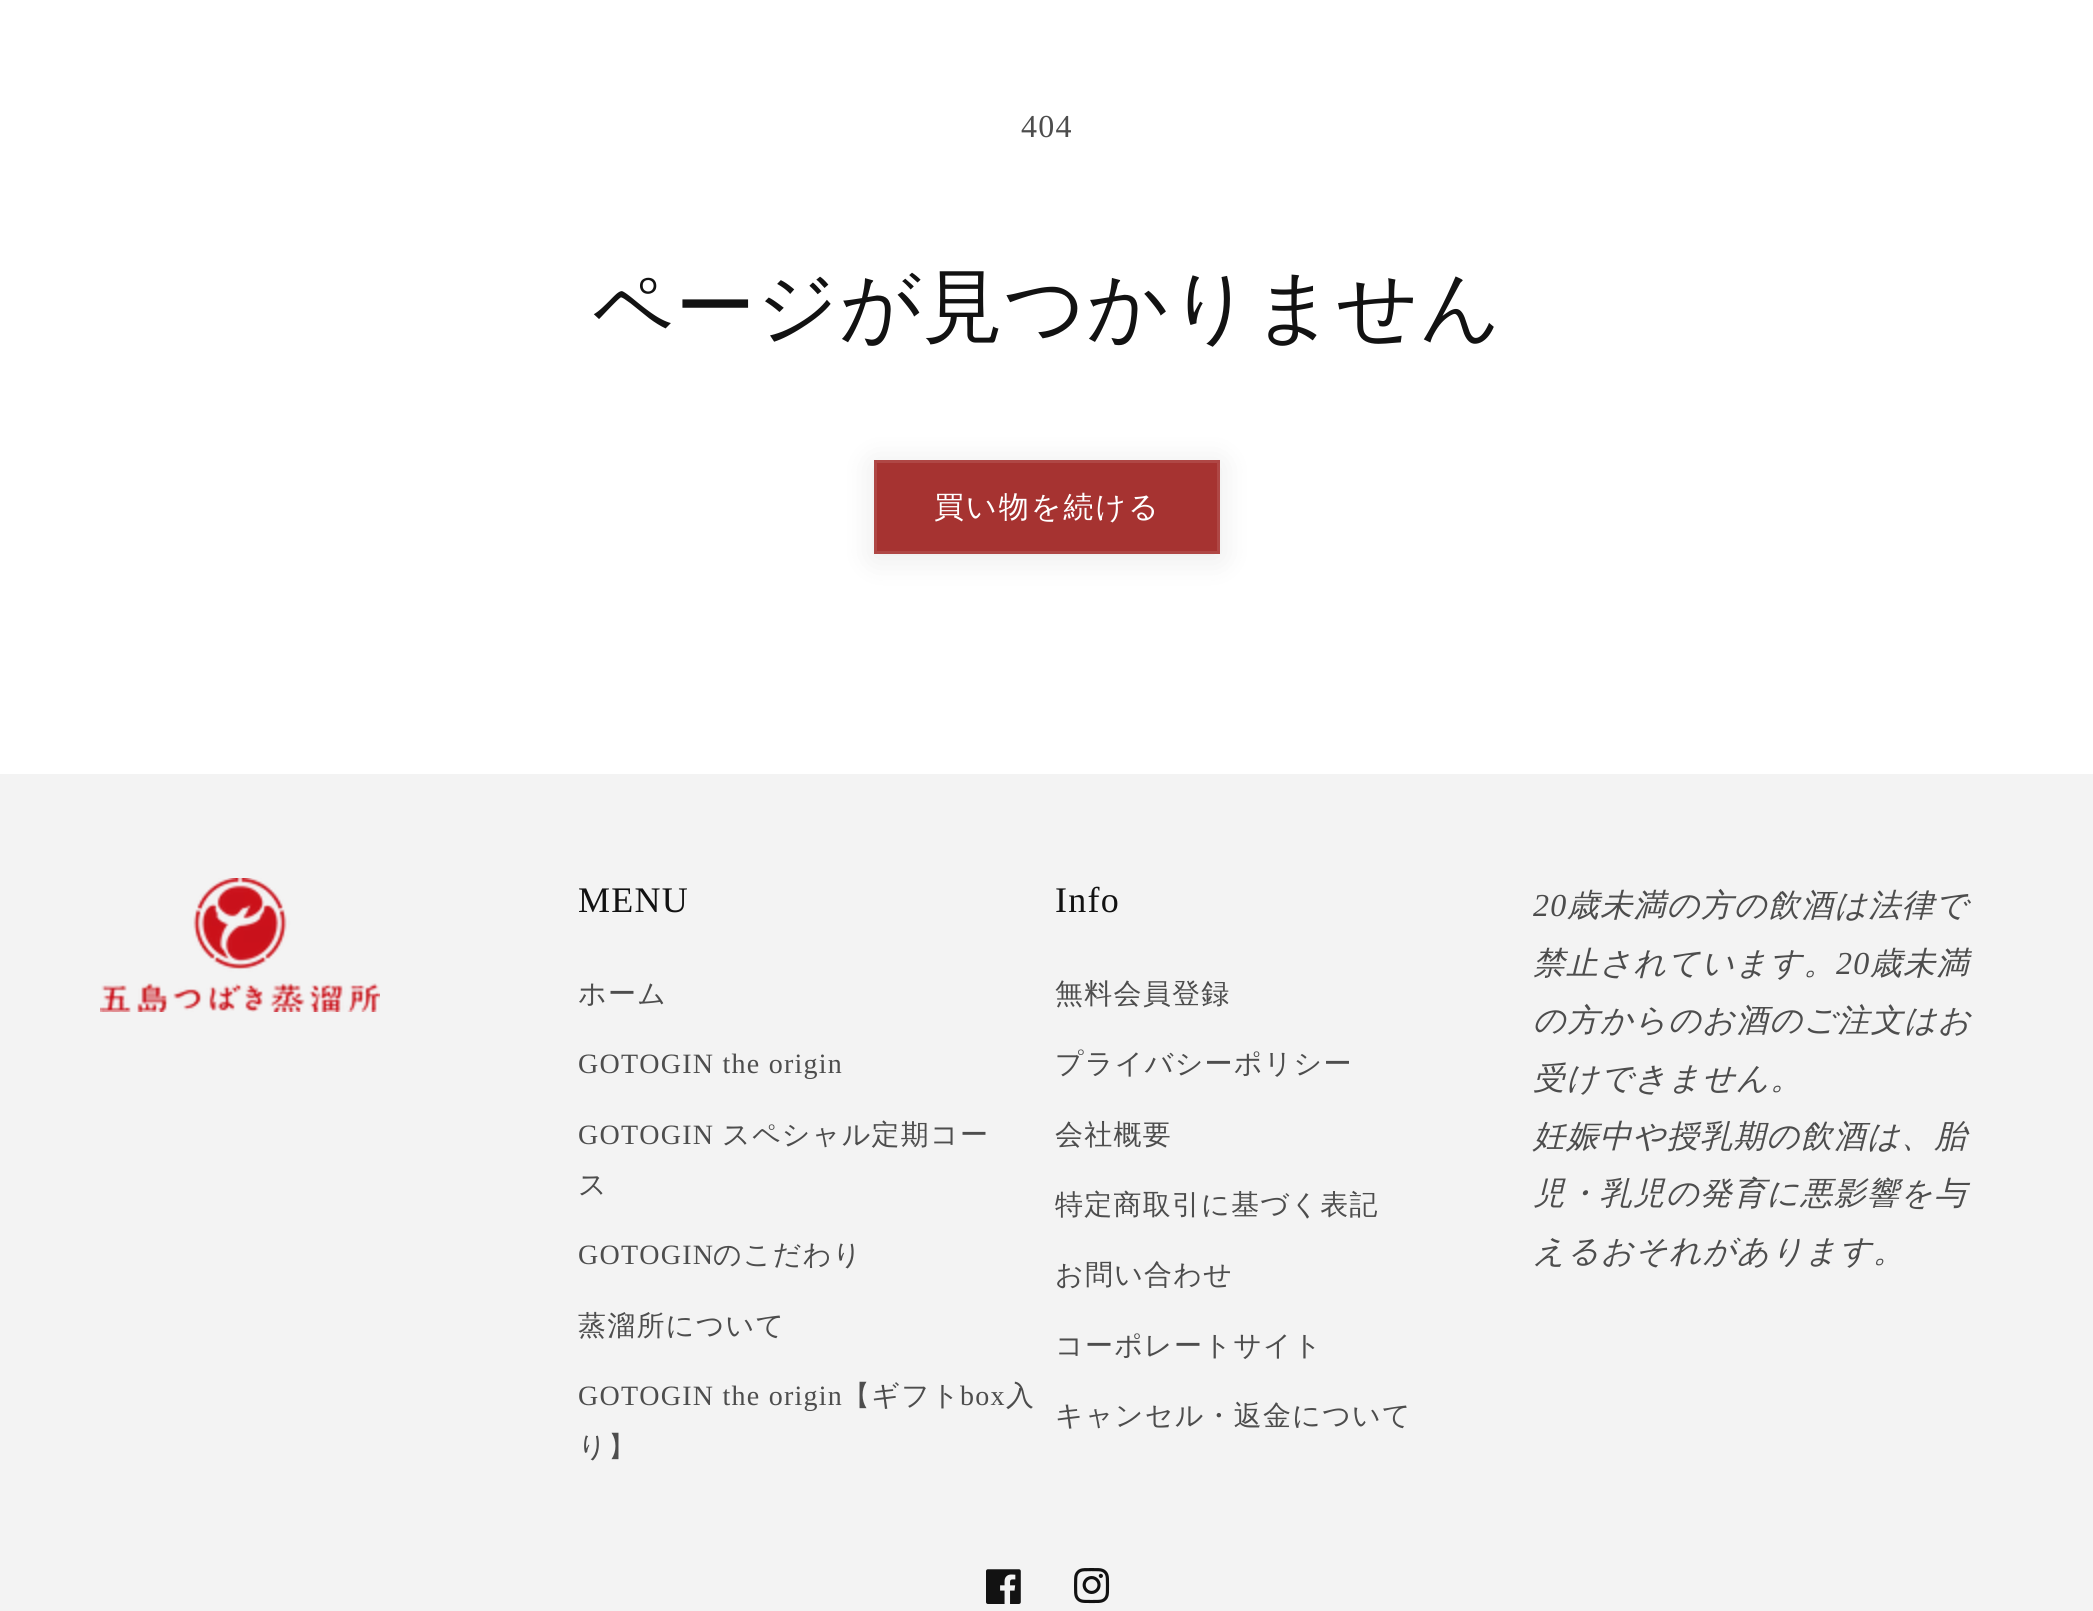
import math
import cairo

surface = cairo.ImageSurface(cairo.FORMAT_RGB24, 2093, 1611)
cr = cairo.Context(surface)
options = cairo.FontOptions()
options.set_hint_metrics(cairo.HINT_METRICS_OFF)
options.set_hint_style(cairo.HINT_STYLE_NONE)
cr.set_font_options(options)
cr.set_miter_limit(4)


def rgb(code):
    cr.set_source_rgb(*(v / 255 for v in bytes.fromhex(code[-6:])))


def tracked(x, y, s, letter, word):
    cr.move_to(x, y)
    for ch in s:
        cr.show_text(ch)
        cr.rel_move_to(letter + word * (ch == ' '), 0)


def rrect(x, y, w, h, r):
    cr.new_sub_path()
    for i, (u, v) in enumerate([(x + w - r, y + h - r), (x + r, y + h - r), (x + r, y + r), (x + w - r, y + r)]):
        cr.arc(u, v, r, i * math.pi / 2, (i + 1) * math.pi / 2)
    cr.close_path()


def soft_shadow(x, y, w, h, r, blur, alpha):
    cr.push_group_with_content(cairo.CONTENT_ALPHA)
    cr.set_operator(cairo.OPERATOR_SOURCE)
    for i in range(15, -16, -2):
        e = blur * i / 6
        if min(w, h) + 2 * e > 0:
            cr.set_source_rgba(0, 0, 0, alpha * math.erfc((i - 1) / 8.5) / 2)
            rrect(x - e, y - e, w + 2 * e, h + 2 * e, max(0, min(r + e + blur * .6, min(w, h) / 2 + e)))
            cr.fill()
    cr.mask(cr.pop_group())


def image(path, x, y, w, h):
    cr.save()
    cr.set_source_surface(cairo.ImageSurface.create_from_png(path), x, y)
    cr.rectangle(x, y, w, h)
    cr.fill()
    cr.restore()


rgb("#ffffff")
cr.paint()
rgb("#121212")
soft_shadow(874, 464, 346, 94, 0, 15, 0.1)
rgb("#a63331")
cr.rectangle(877, 463, 340, 88)
cr.fill()
cr.rectangle(875.5, 461.5, 343, 91)
rgb("#af4745")
cr.set_line_width(3)
cr.stroke()
rgb("#f3f3f3")
cr.rectangle(0, 774, 2093, 837)
cr.fill()
image("img/1.png", 100, 878, 280, 134)
image("img/2.png", 986, 1569, 35, 35)
image("img/3.png", 1074, 1568, 36, 36)
cr.select_font_face("Liberation Serif")
cr.set_font_size(32)
rgb("#4d4d4d")
tracked(1021, 137, "404", 1.25, 0)
cr.select_font_face("WenQuanYi Zen Hei Medium")
cr.set_font_size(80)
rgb("#121212")
tracked(592, 334, "ページが見つかりません", 1.25, 0)
cr.set_font_size(30)
rgb("#ffffff")
tracked(934, 517, "買い物を続ける", 2, 0)
cr.select_font_face("Liberation Serif")
cr.set_font_size(36)
rgb("#121212")
tracked(578, 912, "MENU", 1.25, 0)
cr.select_font_face("WenQuanYi Zen Hei Medium")
cr.set_font_size(28)
rgb("#4d4d4d")
tracked(578, 1003, "ホーム", 1.25, 0)
cr.select_font_face("Liberation Serif")
tracked(578, 1073, "GOTOGIN the origin", 1.25, 0)
tracked(578, 1144, "GOTOGIN", 1.25, 0)
cr.select_font_face("WenQuanYi Zen Hei Medium")
tracked(722, 1144, "スペシャル定期コー", 1.25, 0)
tracked(578, 1194, "ス", 1.25, 0)
cr.select_font_face("Liberation Serif")
tracked(578, 1264, "GOTOGIN", 1.25, 0)
cr.select_font_face("WenQuanYi Zen Hei Medium")
tracked(713, 1264, "のこだわり", 1.25, 0)
tracked(578, 1335, "蒸溜所について", 1.25, 0)
cr.select_font_face("Liberation Serif")
tracked(578, 1405, "GOTOGIN the origin", 1.25, 0)
cr.select_font_face("WenQuanYi Zen Hei Medium")
tracked(842, 1405, "【ギフト", 1.25, 0)
cr.select_font_face("Liberation Serif")
tracked(960, 1405, "box", 1.25, 0)
cr.select_font_face("WenQuanYi Zen Hei Medium")
tracked(1006, 1405, "入", 1.25, 0)
tracked(578, 1456, "り】", 1.25, 0)
cr.select_font_face("Liberation Serif")
cr.set_font_size(36)
rgb("#121212")
tracked(1055, 912, "Info", 1.25, 0)
cr.select_font_face("WenQuanYi Zen Hei Medium")
cr.set_font_size(28)
rgb("#4d4d4d")
for x, y, s in [
    (1055, 1003, "無料会員登録"),
    (1055, 1073, "プライバシーポリシー"),
    (1055, 1144, "会社概要"),
    (1055, 1214, "特定商取引に基づく表記"),
    (1055, 1284, "お問い合わせ"),
    (1055, 1355, "コーポレートサイト"),
    (1055, 1425, "キャンセル・返金について"),
]:
    tracked(x, y, s, 1.25, 0)
cr.select_font_face("Liberation Serif", cairo.FONT_SLANT_ITALIC)
cr.set_font_size(32)
tracked(1533, 916, "20", 1.25, 0)
cr.select_font_face("WenQuanYi Zen Hei Medium", cairo.FONT_SLANT_ITALIC)
tracked(1567, 916, "歳未満の方の飲酒は法律で", 1.25, 0)
tracked(1533, 974, "禁止されています。", 1.25, 0)
cr.select_font_face("Liberation Serif", cairo.FONT_SLANT_ITALIC)
tracked(1836, 974, "20", 1.25, 0)
cr.select_font_face("WenQuanYi Zen Hei Medium", cairo.FONT_SLANT_ITALIC)
for x, y, s in [
    (1870, 974, "歳未満"),
    (1533, 1031, "の方からのお酒のご注文はお"),
    (1533, 1089, "受けできません。"),
    (1533, 1147, "妊娠中や授乳期の飲酒は、胎"),
    (1533, 1204, "児・乳児の発育に悪影響を与"),
    (1533, 1262, "えるおそれがあります。"),
]:
    tracked(x, y, s, 1.25, 0)
surface.write_to_png("page.png")
